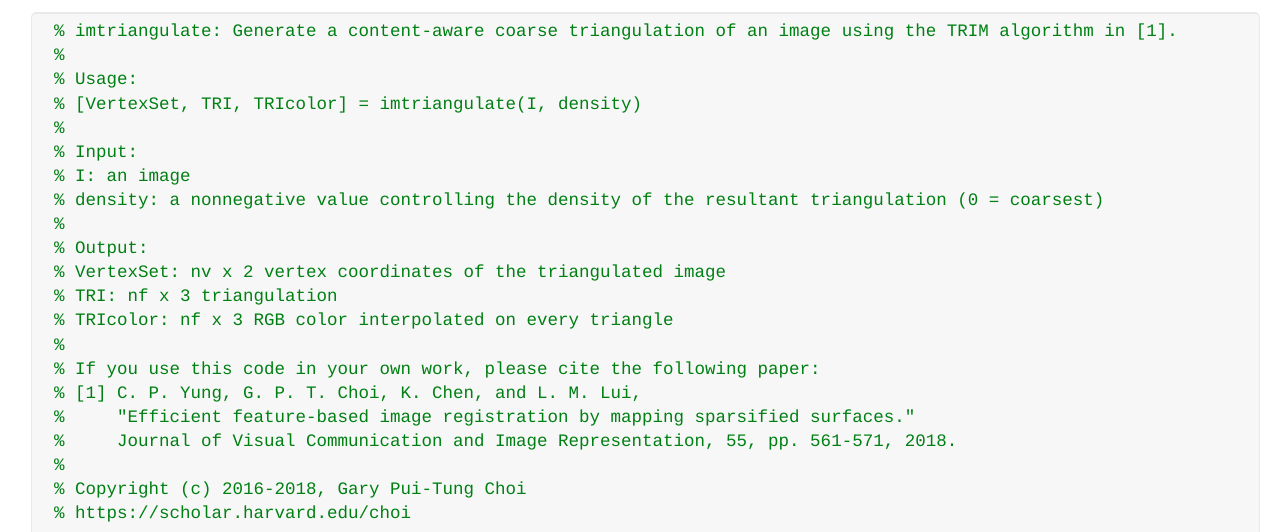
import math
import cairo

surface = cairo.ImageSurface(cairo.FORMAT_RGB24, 1276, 532)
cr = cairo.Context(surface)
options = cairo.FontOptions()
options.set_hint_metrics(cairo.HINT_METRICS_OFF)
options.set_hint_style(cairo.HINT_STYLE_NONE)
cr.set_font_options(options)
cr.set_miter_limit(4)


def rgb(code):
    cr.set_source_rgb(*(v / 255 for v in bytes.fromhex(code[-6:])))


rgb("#ffffff")
cr.paint()
rgb("#f7f7f7")
cr.new_path()
cr.move_to(36, 13)
cr.line_to(1255, 13)
cr.curve_to(1258, 13, 1260, 15, 1260, 18)
cr.line_to(1260, 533)
cr.line_to(31, 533)
cr.line_to(31, 18)
cr.curve_to(31, 15, 33, 13, 36, 13)
cr.close_path()
cr.fill()
rgb("#e9e9e9")
cr.set_fill_rule(cairo.FILL_RULE_EVEN_ODD)
cr.new_path()
cr.move_to(36, 12)
cr.line_to(1255, 12)
cr.curve_to(1258, 12, 1260, 15, 1260, 18)
cr.line_to(1260, 44)
cr.line_to(31, 44)
cr.line_to(31, 18)
cr.curve_to(31, 15, 33, 12, 36, 12)
cr.close_path()
cr.move_to(36, 14)
cr.line_to(1255, 14)
cr.curve_to(1257, 14, 1259, 15, 1259, 18)
cr.line_to(1259, 44)
cr.line_to(32, 44)
cr.line_to(32, 18)
cr.curve_to(32, 15, 34, 14, 36, 14)
cr.close_path()
cr.fill()
cr.rectangle(1259, 44, 1, 488)
cr.fill()
cr.rectangle(31, 44, 1, 488)
cr.fill()
cr.select_font_face("Liberation Mono")
cr.set_font_size(17.5)
rgb("#008013")
for x, y, s in [
    (54, 36, "% imtriangulate: Generate a content-aware coarse triangulation of an image using the TRIM algorithm in [1]."),
    (54, 60, "%"),
    (54, 84, "% Usage:"),
    (54, 109, "% [VertexSet, TRI, TRIcolor] = imtriangulate(I, density)"),
    (54, 133, "%"),
    (54, 157, "% Input:"),
    (54, 181, "% I: an image"),
    (54, 205, "% density: a nonnegative value controlling the density of the resultant triangulation (0 = coarsest)"),
    (54, 229, "%"),
    (54, 253, "% Output:"),
    (54, 277, "% VertexSet: nv x 2 vertex coordinates of the triangulated image"),
    (54, 301, "% TRI: nf x 3 triangulation"),
    (54, 325, "% TRIcolor: nf x 3 RGB color interpolated on every triangle"),
    (54, 350, "%"),
    (54, 374, "% If you use this code in your own work, please cite the following paper:"),
    (54, 398, "% [1] C. P. Yung, G. P. T. Choi, K. Chen, and L. M. Lui,"),
    (54, 422, "%     \"Efficient feature-based image registration by mapping sparsified surfaces.\""),
    (54, 446, "%     Journal of Visual Communication and Image Representation, 55, pp. 561-571, 2018."),
    (54, 470, "%"),
    (54, 494, "% Copyright (c) 2016-2018, Gary Pui-Tung Choi"),
    (54, 518, "% https://scholar.harvard.edu/choi"),
]:
    cr.move_to(x, y)
    cr.show_text(s)
surface.write_to_png("page.png")
